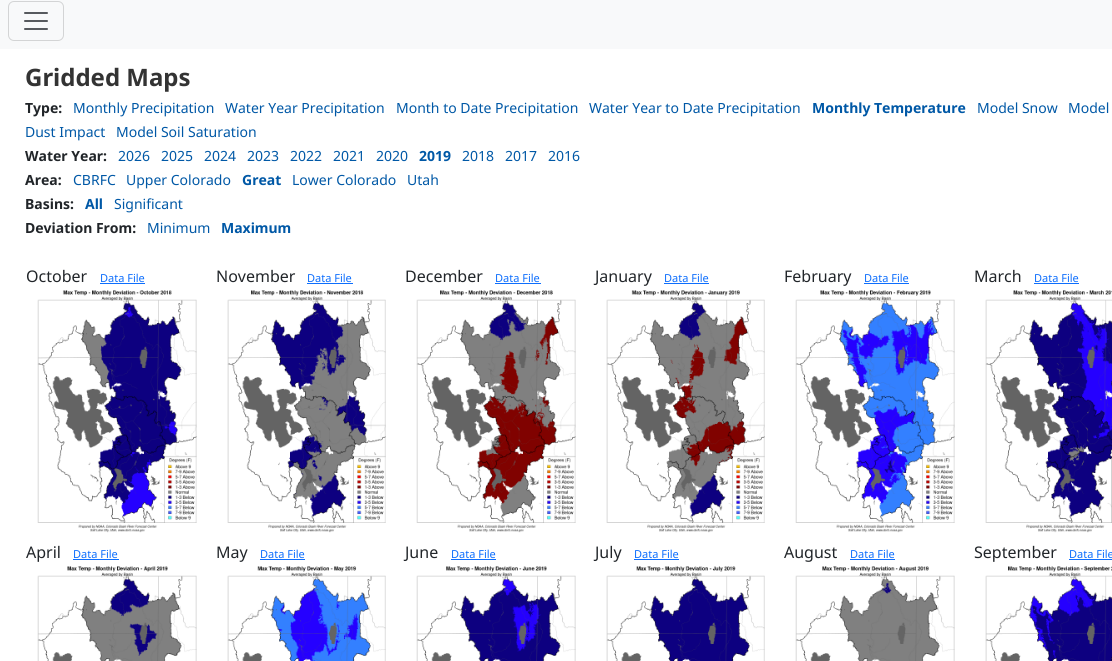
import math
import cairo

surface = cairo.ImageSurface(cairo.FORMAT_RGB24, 1112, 661)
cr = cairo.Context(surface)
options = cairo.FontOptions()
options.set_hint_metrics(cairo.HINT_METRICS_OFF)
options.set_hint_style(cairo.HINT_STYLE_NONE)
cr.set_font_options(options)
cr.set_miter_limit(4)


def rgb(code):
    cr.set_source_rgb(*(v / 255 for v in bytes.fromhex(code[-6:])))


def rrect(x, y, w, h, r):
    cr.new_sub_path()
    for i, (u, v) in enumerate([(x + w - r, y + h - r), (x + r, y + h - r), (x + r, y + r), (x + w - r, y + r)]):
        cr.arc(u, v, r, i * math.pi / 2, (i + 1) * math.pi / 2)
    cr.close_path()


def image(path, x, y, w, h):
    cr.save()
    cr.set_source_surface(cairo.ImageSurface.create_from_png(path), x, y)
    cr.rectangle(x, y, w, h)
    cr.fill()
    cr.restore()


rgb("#ffffff")
cr.paint()
rgb("#f8f9fa")
cr.rectangle(0, 0, 1112, 49)
cr.fill()
rrect(8.5, 1.5, 55, 39, 5.5)
rgb("#d3d4d5")
cr.set_line_width(1)
cr.stroke()
image("img/1.png", 24, 12, 24, 18)
rgb("#0d6efd")
cr.rectangle(100, 283, 45, 1)
cr.fill()
image("img/2.png", 37, 290, 160, 243)
cr.rectangle(307, 283, 46, 1)
cr.fill()
image("img/3.png", 227, 290, 159, 243)
cr.rectangle(495, 283, 46, 1)
cr.fill()
image("img/4.png", 416, 290, 160, 243)
cr.rectangle(664, 283, 45, 1)
cr.fill()
image("img/5.png", 606, 290, 159, 243)
cr.rectangle(864, 283, 45, 1)
cr.fill()
image("img/6.png", 795, 290, 160, 243)
cr.rectangle(1034, 283, 45, 1)
cr.fill()
image("img/7.png", 985, 290, 127, 243)
cr.rectangle(73, 559, 46, 1)
cr.fill()
image("img/8.png", 37, 566, 160, 95)
cr.rectangle(260, 559, 45, 1)
cr.fill()
image("img/9.png", 227, 566, 159, 95)
cr.rectangle(451, 559, 45, 1)
cr.fill()
image("img/10.png", 416, 566, 160, 95)
cr.rectangle(634, 559, 45, 1)
cr.fill()
image("img/11.png", 606, 566, 159, 95)
cr.rectangle(850, 559, 45, 1)
cr.fill()
image("img/12.png", 795, 566, 160, 95)
cr.rectangle(1069, 559, 43, 1)
cr.fill()
image("img/13.png", 985, 566, 127, 95)
cr.select_font_face("Noto Sans", cairo.FONT_SLANT_NORMAL, cairo.FONT_WEIGHT_BOLD)
cr.set_font_size(24)
rgb("#333333")
cr.move_to(25, 86)
cr.show_text("Gridded Maps")
cr.set_font_size(14)
rgb("#212529")
cr.move_to(25, 113)
cr.show_text("Type:")
cr.select_font_face("Noto Sans")
rgb("#0058a6")
for x, y, s in [
    (73, 113, "Monthly Precipitation"),
    (225, 113, "Water Year Precipitation"),
    (396, 113, "Month to Date Precipitation"),
    (589, 113, "Water Year to Date Precipitation"),
]:
    cr.move_to(x, y)
    cr.show_text(s)
cr.select_font_face("Noto Sans", cairo.FONT_SLANT_NORMAL, cairo.FONT_WEIGHT_BOLD)
cr.move_to(812, 113)
cr.show_text("Monthly Temperature")
cr.select_font_face("Noto Sans")
for x, y, s in [
    (977, 113, "Model Snow"),
    (1068, 113, "Model"),
    (25, 137, "Dust Impact"),
    (116, 137, "Model Soil Saturation"),
]:
    cr.move_to(x, y)
    cr.show_text(s)
cr.select_font_face("Noto Sans", cairo.FONT_SLANT_NORMAL, cairo.FONT_WEIGHT_BOLD)
rgb("#212529")
cr.move_to(25, 161)
cr.show_text("Water Year:")
cr.select_font_face("Noto Sans")
rgb("#0058a6")
for x, y, s in [
    (118, 161, "2026"),
    (161, 161, "2025"),
    (204, 161, "2024"),
    (247, 161, "2023"),
    (290, 161, "2022"),
    (333, 161, "2021"),
    (376, 161, "2020"),
]:
    cr.move_to(x, y)
    cr.show_text(s)
cr.select_font_face("Noto Sans", cairo.FONT_SLANT_NORMAL, cairo.FONT_WEIGHT_BOLD)
cr.move_to(419, 161)
cr.show_text("2019")
cr.select_font_face("Noto Sans")
for x, y, s in [
    (462, 161, "2018"),
    (505, 161, "2017"),
    (548, 161, "2016"),
]:
    cr.move_to(x, y)
    cr.show_text(s)
cr.select_font_face("Noto Sans", cairo.FONT_SLANT_NORMAL, cairo.FONT_WEIGHT_BOLD)
rgb("#212529")
cr.move_to(25, 185)
cr.show_text("Area:")
cr.select_font_face("Noto Sans")
rgb("#0058a6")
cr.move_to(73, 185)
cr.show_text("CBRFC")
cr.move_to(126, 185)
cr.show_text("Upper Colorado")
cr.select_font_face("Noto Sans", cairo.FONT_SLANT_NORMAL, cairo.FONT_WEIGHT_BOLD)
cr.move_to(242, 185)
cr.show_text("Great")
cr.select_font_face("Noto Sans")
cr.move_to(292, 185)
cr.show_text("Lower Colorado")
cr.move_to(407, 185)
cr.show_text("Utah")
cr.select_font_face("Noto Sans", cairo.FONT_SLANT_NORMAL, cairo.FONT_WEIGHT_BOLD)
rgb("#212529")
cr.move_to(25, 209)
cr.show_text("Basins:")
rgb("#0058a6")
cr.move_to(85, 209)
cr.show_text("All")
cr.select_font_face("Noto Sans")
cr.move_to(114, 209)
cr.show_text("Significant")
cr.select_font_face("Noto Sans", cairo.FONT_SLANT_NORMAL, cairo.FONT_WEIGHT_BOLD)
rgb("#212529")
cr.move_to(25, 233)
cr.show_text("Deviation From:")
cr.select_font_face("Noto Sans")
rgb("#0058a6")
cr.move_to(147, 233)
cr.show_text("Minimum")
cr.select_font_face("Noto Sans", cairo.FONT_SLANT_NORMAL, cairo.FONT_WEIGHT_BOLD)
cr.move_to(221, 233)
cr.show_text("Maximum")
cr.select_font_face("Noto Sans")
cr.set_font_size(16)
rgb("#212529")
cr.move_to(26, 282)
cr.show_text("October")
cr.set_font_size(11)
rgb("#0d6efd")
cr.move_to(100, 282)
cr.show_text("Data File")
cr.set_font_size(16)
rgb("#212529")
cr.move_to(216, 282)
cr.show_text("November")
cr.set_font_size(11)
rgb("#0d6efd")
cr.move_to(307, 282)
cr.show_text("Data File")
cr.set_font_size(16)
rgb("#212529")
cr.move_to(405, 282)
cr.show_text("December")
cr.set_font_size(11)
rgb("#0d6efd")
cr.move_to(495, 282)
cr.show_text("Data File")
cr.set_font_size(16)
rgb("#212529")
cr.move_to(595, 282)
cr.show_text("January")
cr.set_font_size(11)
rgb("#0d6efd")
cr.move_to(664, 282)
cr.show_text("Data File")
cr.set_font_size(16)
rgb("#212529")
cr.move_to(784, 282)
cr.show_text("February")
cr.set_font_size(11)
rgb("#0d6efd")
cr.move_to(864, 282)
cr.show_text("Data File")
cr.set_font_size(16)
rgb("#212529")
cr.move_to(974, 282)
cr.show_text("March")
cr.set_font_size(11)
rgb("#0d6efd")
cr.move_to(1034, 282)
cr.show_text("Data File")
cr.set_font_size(16)
rgb("#212529")
cr.move_to(26, 558)
cr.show_text("April")
cr.set_font_size(11)
rgb("#0d6efd")
cr.move_to(73, 558)
cr.show_text("Data File")
cr.set_font_size(16)
rgb("#212529")
cr.move_to(216, 558)
cr.show_text("May")
cr.set_font_size(11)
rgb("#0d6efd")
cr.move_to(260, 558)
cr.show_text("Data File")
cr.set_font_size(16)
rgb("#212529")
cr.move_to(405, 558)
cr.show_text("June")
cr.set_font_size(11)
rgb("#0d6efd")
cr.move_to(451, 558)
cr.show_text("Data File")
cr.set_font_size(16)
rgb("#212529")
cr.move_to(595, 558)
cr.show_text("July")
cr.set_font_size(11)
rgb("#0d6efd")
cr.move_to(634, 558)
cr.show_text("Data File")
cr.set_font_size(16)
rgb("#212529")
cr.move_to(784, 558)
cr.show_text("August")
cr.set_font_size(11)
rgb("#0d6efd")
cr.move_to(850, 558)
cr.show_text("Data File")
cr.set_font_size(16)
rgb("#212529")
cr.move_to(974, 558)
cr.show_text("September")
cr.set_font_size(11)
rgb("#0d6efd")
cr.move_to(1069, 558)
cr.show_text("Data File")
surface.write_to_png("page.png")
